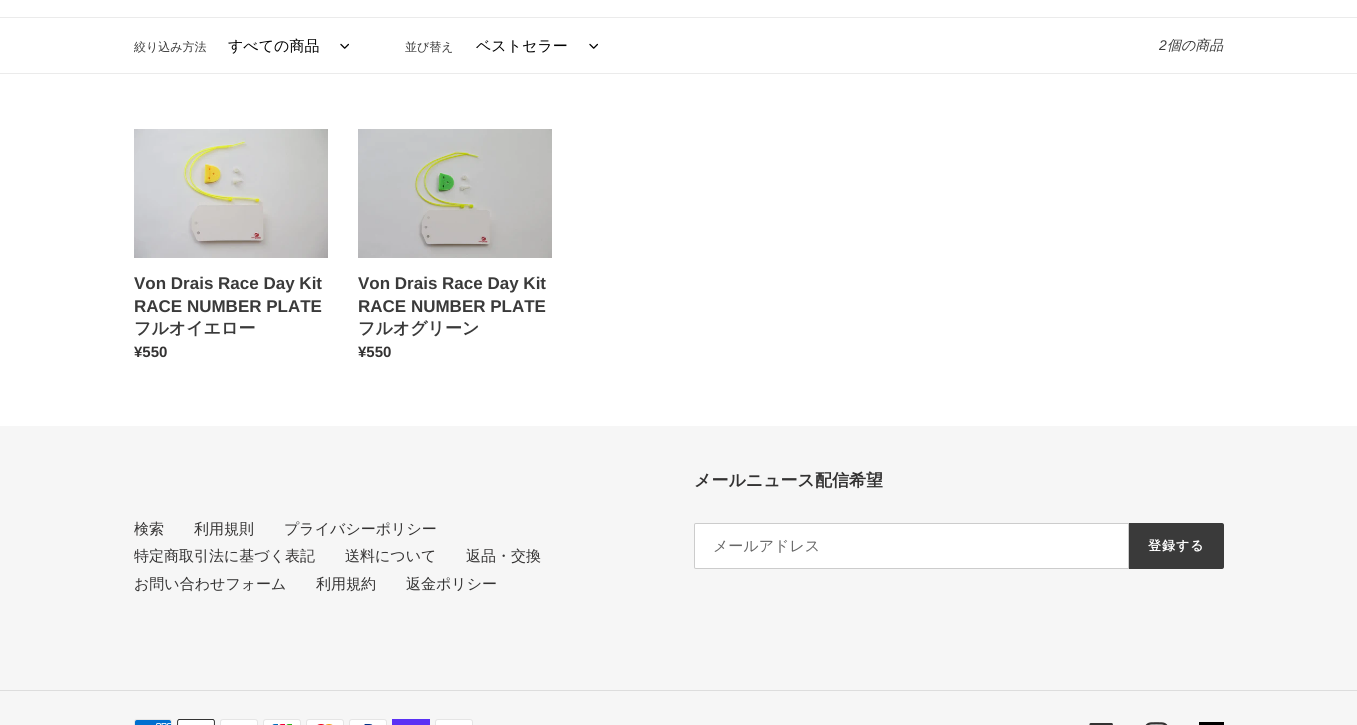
import math
import cairo

surface = cairo.ImageSurface(cairo.FORMAT_RGB24, 1357, 725)
cr = cairo.Context(surface)
options = cairo.FontOptions()
options.set_hint_metrics(cairo.HINT_METRICS_OFF)
options.set_hint_style(cairo.HINT_STYLE_NONE)
cr.set_font_options(options)
cr.set_miter_limit(4)


def rgb(code):
    cr.set_source_rgb(*(v / 255 for v in bytes.fromhex(code[-6:])))


def tracked(x, y, s, letter, word):
    cr.move_to(x, y)
    for ch in s:
        cr.show_text(ch)
        cr.rel_move_to(letter + word * (ch == ' '), 0)


def image(path, x, y, w, h):
    cr.save()
    cr.set_source_surface(cairo.ImageSurface.create_from_png(path), x, y)
    cr.rectangle(x, y, w, h)
    cr.fill()
    cr.restore()


rgb("#ffffff")
cr.paint()
rgb("#ebebeb")
cr.rectangle(0, 17, 1357, 1)
cr.fill()
cr.rectangle(0, 73, 1357, 1)
cr.fill()
image("img/1.png", 340, 43, 9, 6)
image("img/1.png", 589, 43, 9, 6)
image("img/2.png", 134, 129, 194, 129)
image("img/3.png", 358, 129, 194, 129)
rgb("#f6f6f6")
cr.rectangle(0, 426, 1357, 299)
cr.fill()
rgb("#ffffff")
cr.new_path()
cr.move_to(696, 523.5)
cr.line_to(1128.5, 523.5)
cr.line_to(1128.5, 568.5)
cr.line_to(696, 568.5)
cr.curve_to(695, 568.5, 694.5, 568, 694.5, 567)
cr.line_to(694.5, 525)
cr.curve_to(694.5, 524, 695, 523.5, 696, 523.5)
cr.close_path()
cr.fill_preserve()
rgb("#cccccc")
cr.set_line_width(1)
cr.stroke()
rgb("#3a3a3a")
cr.new_path()
cr.move_to(1129, 523)
cr.line_to(1222, 523)
cr.curve_to(1223, 523, 1224, 524, 1224, 525)
cr.line_to(1224, 567)
cr.curve_to(1224, 568, 1223, 569, 1222, 569)
cr.line_to(1129, 569)
cr.close_path()
cr.fill()
rgb("#dddddd")
cr.rectangle(0, 690, 1357, 1)
cr.fill()
image("img/4.png", 134, 719, 38, 6)
image("img/5.png", 177, 719, 38, 6)
image("img/6.png", 220, 719, 38, 6)
image("img/7.png", 263, 719, 38, 6)
image("img/8.png", 306, 719, 38, 6)
image("img/9.png", 349, 719, 38, 6)
rgb("#5a31f4")
cr.rectangle(392, 719, 38, 6)
cr.fill()
image("img/6.png", 435, 719, 38, 6)
image("img/10.png", 1089, 723, 24, 2)
image("img/11.png", 1145, 722, 23, 3)
rgb("#000000")
cr.rectangle(1199, 722, 25, 3)
cr.fill()
cr.select_font_face("WenQuanYi Zen Hei Medium")
cr.set_font_size(12)
rgb("#3a3a3a")
cr.move_to(134, 51)
cr.show_text("絞り込み方法")
cr.set_font_size(15)
rgb("#000000")
cr.move_to(228, 51)
cr.show_text("すべての商品")
cr.set_font_size(12)
rgb("#3a3a3a")
cr.move_to(405, 51)
cr.show_text("並び替え")
cr.set_font_size(15)
rgb("#000000")
cr.move_to(476, 51)
cr.show_text("ベストセラー")
cr.select_font_face("Liberation Sans", cairo.FONT_SLANT_ITALIC)
cr.set_font_size(14)
rgb("#3a3a3a")
cr.move_to(1159, 50)
cr.show_text("2")
cr.select_font_face("WenQuanYi Zen Hei Medium", cairo.FONT_SLANT_ITALIC)
cr.move_to(1167, 50)
cr.show_text("個の商品")
cr.select_font_face("Liberation Sans", cairo.FONT_SLANT_NORMAL, cairo.FONT_WEIGHT_BOLD)
cr.set_font_size(17)
cr.move_to(134, 289)
cr.show_text("Von Drais Race Day Kit")
cr.move_to(134, 312)
cr.show_text("RACE NUMBER PLATE")
cr.select_font_face("WenQuanYi Zen Hei", cairo.FONT_SLANT_NORMAL, cairo.FONT_WEIGHT_BOLD)
cr.move_to(134, 334)
cr.show_text("フルオイエロー")
cr.select_font_face("Liberation Sans", cairo.FONT_SLANT_NORMAL, cairo.FONT_WEIGHT_BOLD)
cr.set_font_size(15)
rgb("#333232")
cr.move_to(134, 357)
cr.show_text("¥550")
cr.set_font_size(17)
rgb("#3a3a3a")
cr.move_to(358, 289)
cr.show_text("Von Drais Race Day Kit")
cr.move_to(358, 312)
cr.show_text("RACE NUMBER PLATE")
cr.select_font_face("WenQuanYi Zen Hei", cairo.FONT_SLANT_NORMAL, cairo.FONT_WEIGHT_BOLD)
cr.move_to(358, 334)
cr.show_text("フルオグリーン")
cr.select_font_face("Liberation Sans", cairo.FONT_SLANT_NORMAL, cairo.FONT_WEIGHT_BOLD)
cr.set_font_size(15)
rgb("#333232")
cr.move_to(358, 357)
cr.show_text("¥550")
cr.select_font_face("WenQuanYi Zen Hei Medium")
for x, y, s in [
    (134, 534, "検索"),
    (194, 534, "利用規則"),
    (284, 534, "プライバシーポリシー"),
    (134, 561, "特定商取引法に基づく表記"),
    (345, 561, "送料について"),
    (466, 561, "返品・交換"),
    (134, 589, "お問い合わせフォーム"),
    (316, 589, "利用規約"),
    (406, 589, "返金ポリシー"),
]:
    cr.move_to(x, y)
    cr.show_text(s)
cr.select_font_face("WenQuanYi Zen Hei", cairo.FONT_SLANT_NORMAL, cairo.FONT_WEIGHT_BOLD)
cr.set_font_size(17)
cr.move_to(694, 486)
cr.show_text("メールニュース配信希望")
cr.select_font_face("WenQuanYi Zen Hei Medium")
cr.set_font_size(15)
rgb("#666666")
cr.move_to(713, 551)
cr.show_text("メールアドレス")
cr.select_font_face("WenQuanYi Zen Hei", cairo.FONT_SLANT_NORMAL, cairo.FONT_WEIGHT_BOLD)
cr.set_font_size(13)
rgb("#ffffff")
tracked(1148, 550, "登録する", 1, 0)
surface.write_to_png("page.png")
